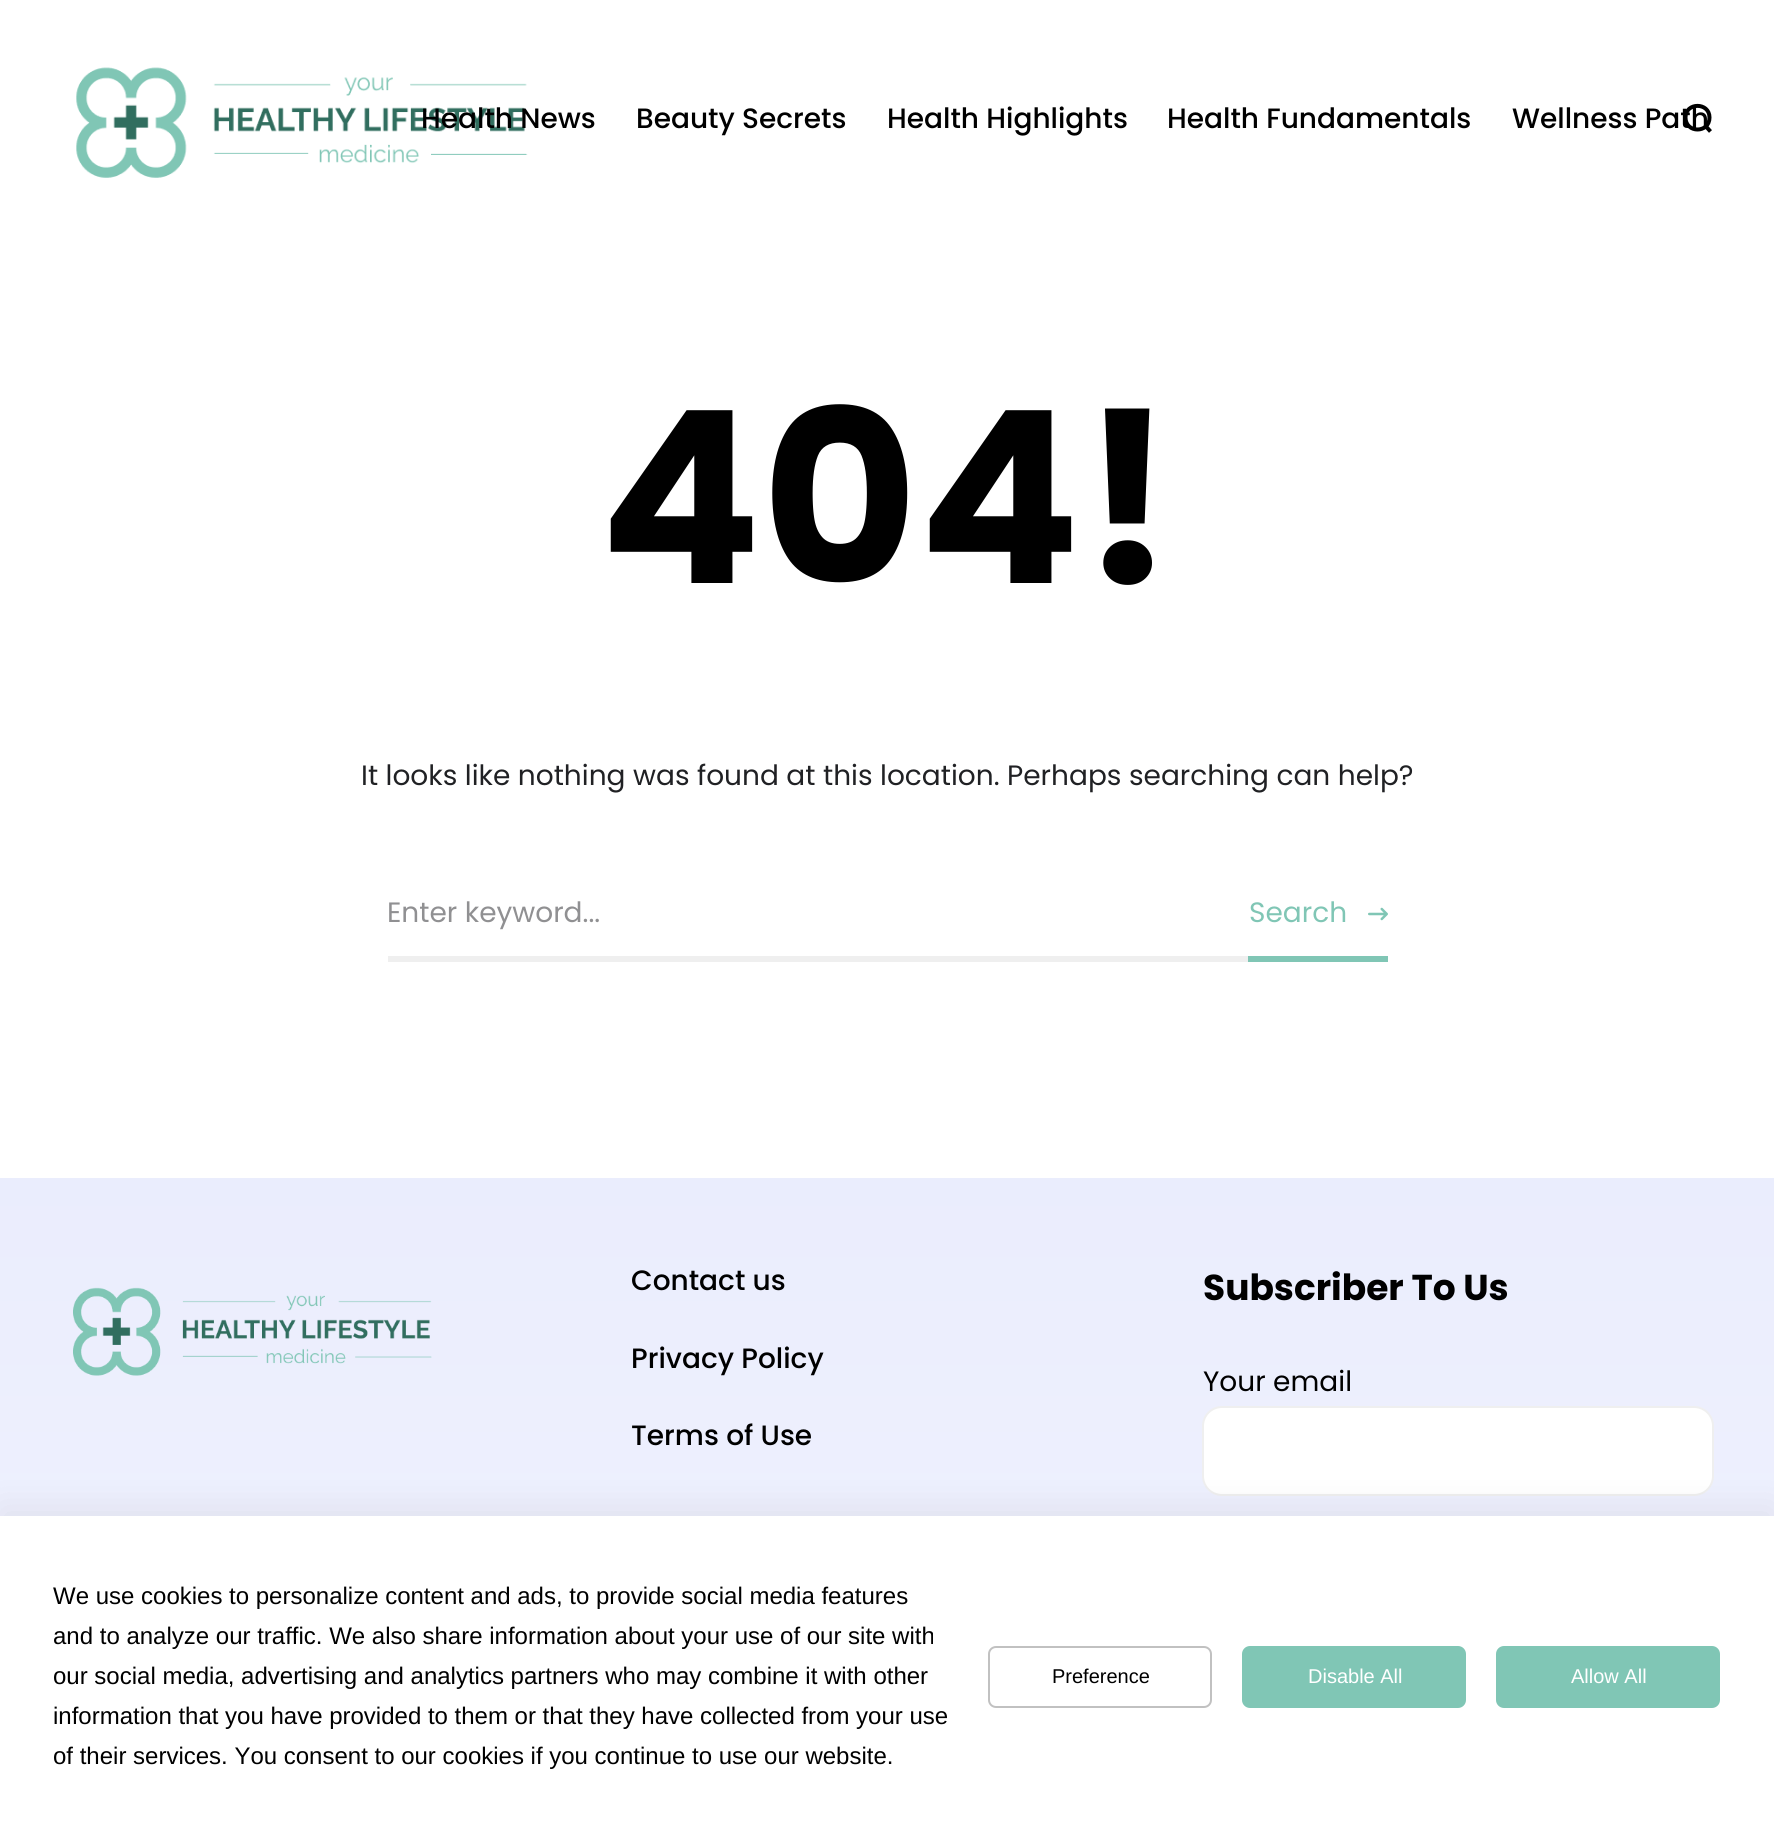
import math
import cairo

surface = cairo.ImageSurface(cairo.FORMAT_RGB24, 1774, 1835)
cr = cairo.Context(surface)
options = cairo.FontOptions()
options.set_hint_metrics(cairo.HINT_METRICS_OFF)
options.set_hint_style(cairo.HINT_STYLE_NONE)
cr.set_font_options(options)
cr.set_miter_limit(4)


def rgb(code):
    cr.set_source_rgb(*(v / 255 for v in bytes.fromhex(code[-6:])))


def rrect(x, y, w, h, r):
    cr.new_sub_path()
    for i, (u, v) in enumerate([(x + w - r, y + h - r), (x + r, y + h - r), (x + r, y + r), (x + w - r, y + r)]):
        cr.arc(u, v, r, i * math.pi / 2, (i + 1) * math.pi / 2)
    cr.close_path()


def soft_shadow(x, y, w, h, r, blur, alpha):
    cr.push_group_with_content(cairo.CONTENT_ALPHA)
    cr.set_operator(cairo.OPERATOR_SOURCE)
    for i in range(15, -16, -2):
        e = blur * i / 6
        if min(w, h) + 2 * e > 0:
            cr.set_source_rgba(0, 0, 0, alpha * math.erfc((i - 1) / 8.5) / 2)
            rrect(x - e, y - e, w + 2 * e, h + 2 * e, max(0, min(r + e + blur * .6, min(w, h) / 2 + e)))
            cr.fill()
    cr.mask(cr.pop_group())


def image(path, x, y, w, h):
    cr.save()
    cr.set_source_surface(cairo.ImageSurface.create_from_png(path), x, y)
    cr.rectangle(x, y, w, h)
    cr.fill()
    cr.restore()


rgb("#ffffff")
cr.paint()
cr.new_path()
cr.move_to(1685.5, 117.5)
cr.curve_to(1685.5, 133.5, 1709.5, 133.5, 1709.5, 117.5)
cr.curve_to(1709.5, 102, 1685.5, 102, 1685.5, 117.5)
cr.move_to(1706, 126.5)
cr.line_to(1710.5, 131.5)
rgb("#000000")
cr.set_line_width(4)
cr.stroke()
image("img/1.png", 76, 67, 452, 111)
rgb("#efefef")
cr.rectangle(388, 956, 860, 6)
cr.fill()
rgb("#80c6b5")
cr.rectangle(1248, 956, 140, 6)
cr.fill()
image("img/2.png", 1368, 907, 20, 14)
gradient = cairo.LinearGradient(887, -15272, 887, 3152)
gradient.add_color_stop_rgba(0, 0.239, 0.333, 0.937, 1)
gradient.add_color_stop_rgba(1, 1, 1, 1, 1)
cr.set_source(gradient)
cr.rectangle(0, 1178, 1774, 338)
cr.fill()
image("img/3.png", 73, 1287, 359, 89)
rgb("#ffffff")
rrect(1203, 1407, 510, 88, 19)
cr.fill_preserve()
rgb("#efefef")
cr.set_line_width(2)
cr.stroke()
rgb("#000000")
soft_shadow(0, 1508, 1774, 320, 0, 19, 0.07)
rgb("#ffffff")
cr.rectangle(0, 1516, 1774, 319)
cr.fill()
rrect(989, 1647, 222, 60, 7)
rgb("#c1c1c1")
cr.stroke()
rgb("#80c6b5")
rrect(1242, 1646, 224, 62, 8)
cr.fill()
rrect(1496, 1646, 224, 62, 8)
cr.fill()
cr.select_font_face("Poppins Medium")
cr.set_font_size(28)
rgb("#000000")
for x, y, s in [
    (421, 128, "Health News"),
    (636, 128, "Beauty Secrets"),
    (887, 128, "Health Highlights"),
    (1167, 128, "Health Fundamentals"),
    (1512, 128, "Wellness Path"),
]:
    cr.move_to(x, y)
    cr.show_text(s)
cr.select_font_face("Poppins", cairo.FONT_SLANT_NORMAL, cairo.FONT_WEIGHT_BOLD)
cr.set_font_size(240)
cr.move_to(599, 583)
cr.show_text("404!")
cr.select_font_face("Poppins")
cr.set_font_size(28)
rgb("#202124")
cr.move_to(361, 785)
cr.show_text("It looks like nothing was found at this location. Perhaps searching can help?")
rgb("#909092")
cr.move_to(387, 922)
cr.show_text("Enter keyword...")
rgb("#80c6b5")
cr.move_to(1249, 922)
cr.show_text("Search")
cr.select_font_face("Poppins Medium")
rgb("#000000")
for x, y, s in [
    (631, 1290, "Contact us"),
    (631, 1368, "Privacy Policy"),
    (631, 1445, "Terms of Use"),
]:
    cr.move_to(x, y)
    cr.show_text(s)
cr.select_font_face("Poppins", cairo.FONT_SLANT_NORMAL, cairo.FONT_WEIGHT_BOLD)
cr.set_font_size(36)
cr.move_to(1203, 1300)
cr.show_text("Subscriber To Us")
cr.select_font_face("Poppins")
cr.set_font_size(28)
cr.move_to(1203, 1391)
cr.show_text("Your email")
cr.select_font_face("Liberation Sans")
cr.set_font_size(24)
for x, y, s in [
    (53, 1604, "We use cookies to personalize content and ads, to provide social media features"),
    (53, 1644, "and to analyze our traffic. We also share information about your use of our site with"),
    (53, 1684, "our social media, advertising and analytics partners who may combine it with other"),
    (53, 1724, "information that you have provided to them or that they have collected from your use"),
    (53, 1764, "of their services. You consent to our cookies if you continue to use our website."),
]:
    cr.move_to(x, y)
    cr.show_text(s)
cr.set_font_size(20)
cr.move_to(1052, 1683)
cr.show_text("Preference")
rgb("#ffffff")
cr.move_to(1308, 1683)
cr.show_text("Disable All")
cr.move_to(1571, 1683)
cr.show_text("Allow All")
surface.write_to_png("page.png")
